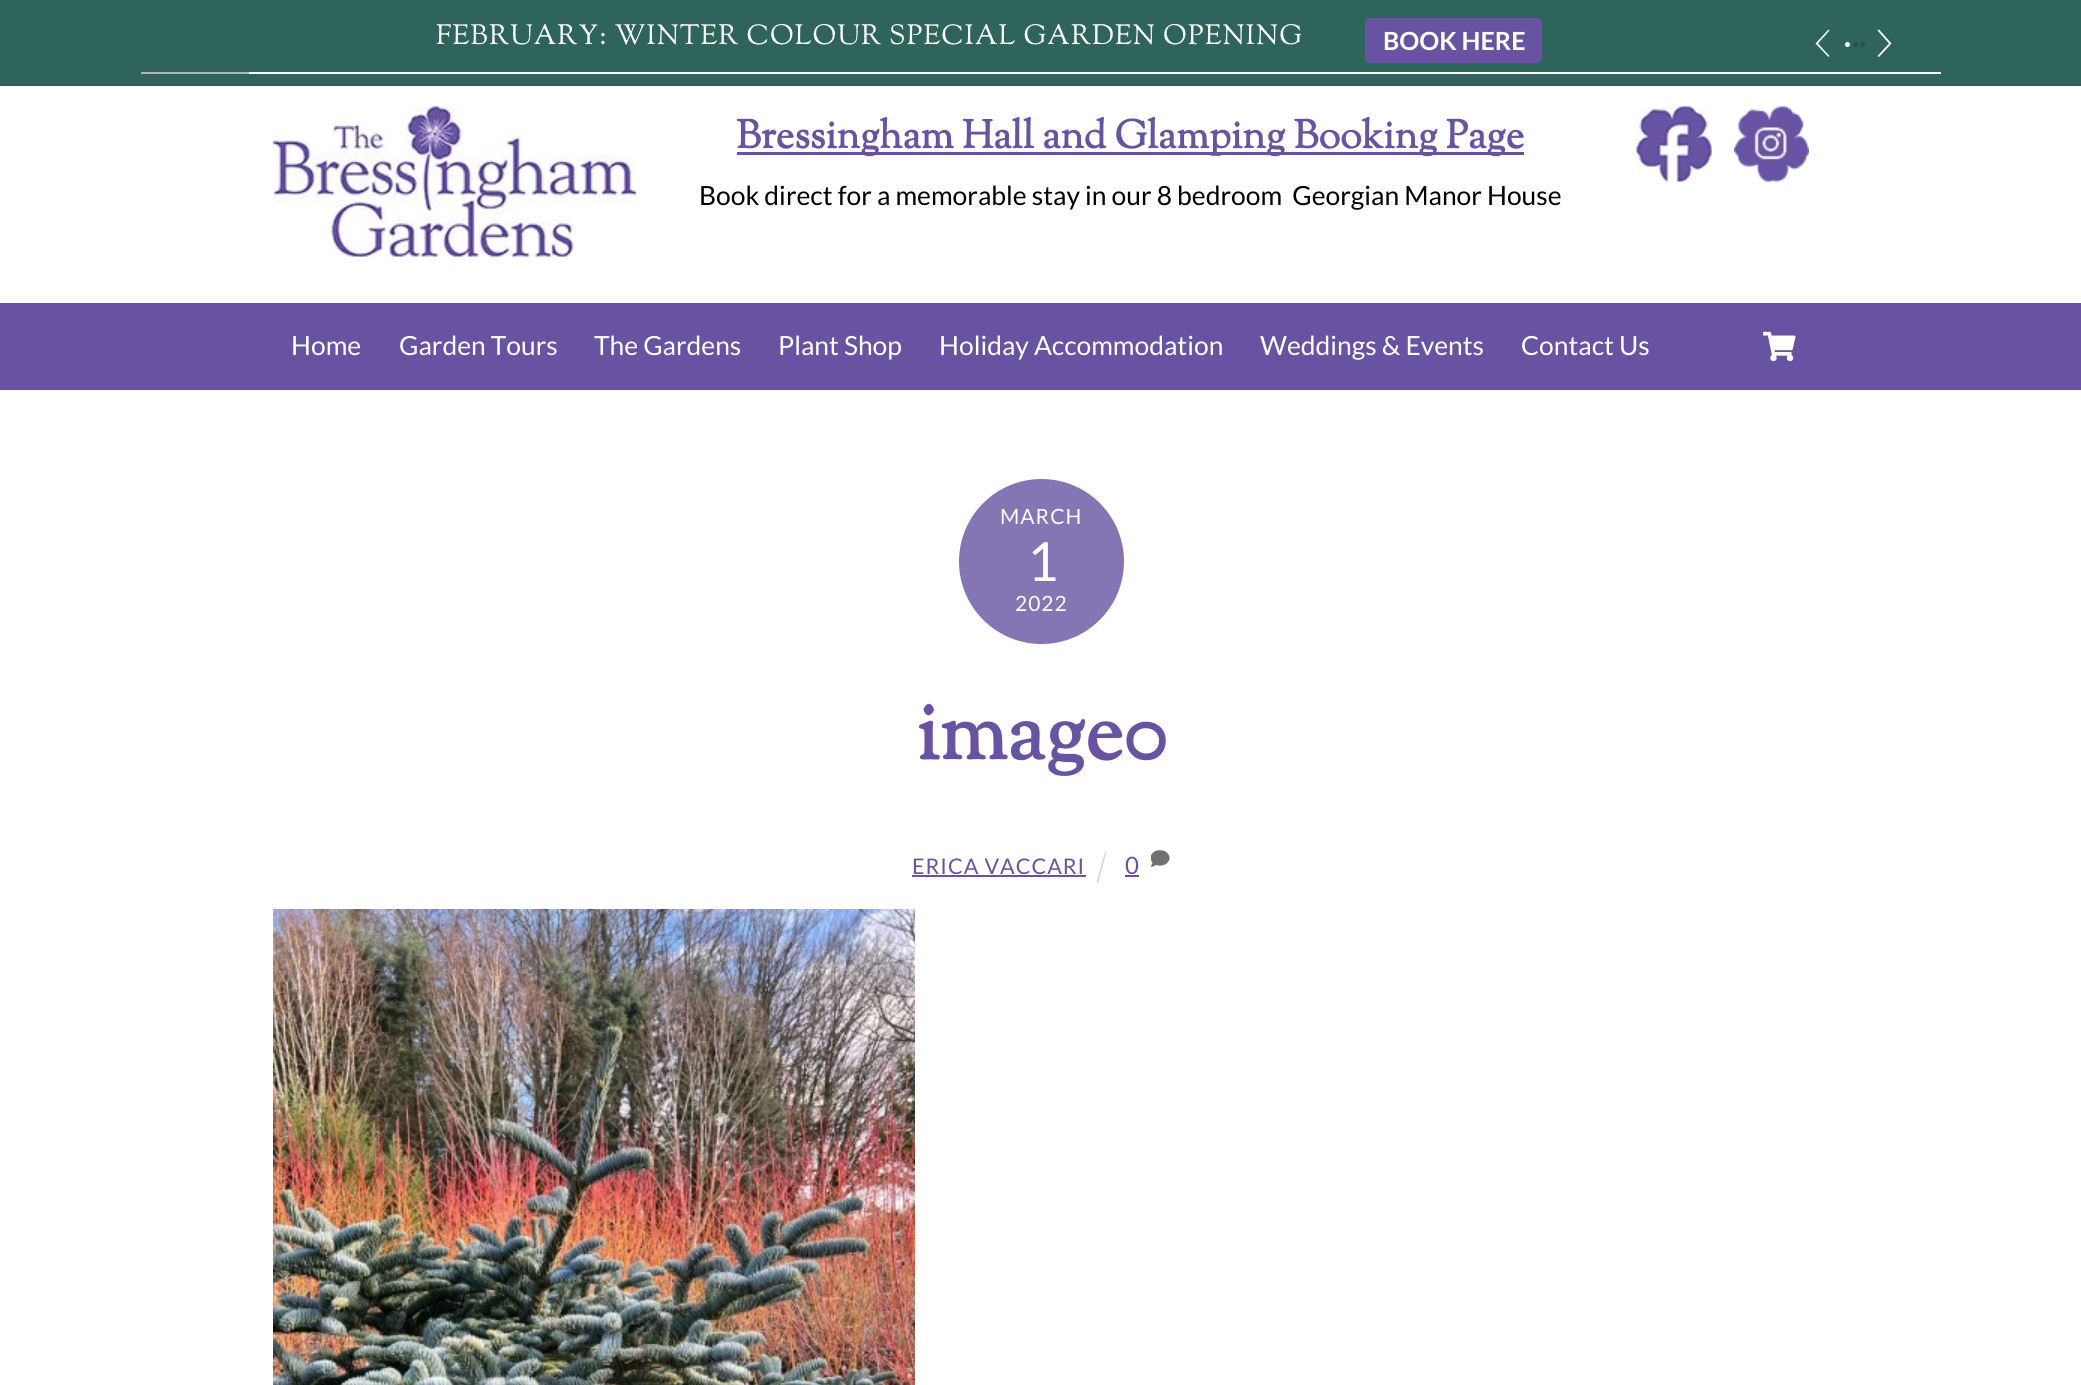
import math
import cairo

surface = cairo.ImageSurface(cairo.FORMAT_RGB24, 2081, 1385)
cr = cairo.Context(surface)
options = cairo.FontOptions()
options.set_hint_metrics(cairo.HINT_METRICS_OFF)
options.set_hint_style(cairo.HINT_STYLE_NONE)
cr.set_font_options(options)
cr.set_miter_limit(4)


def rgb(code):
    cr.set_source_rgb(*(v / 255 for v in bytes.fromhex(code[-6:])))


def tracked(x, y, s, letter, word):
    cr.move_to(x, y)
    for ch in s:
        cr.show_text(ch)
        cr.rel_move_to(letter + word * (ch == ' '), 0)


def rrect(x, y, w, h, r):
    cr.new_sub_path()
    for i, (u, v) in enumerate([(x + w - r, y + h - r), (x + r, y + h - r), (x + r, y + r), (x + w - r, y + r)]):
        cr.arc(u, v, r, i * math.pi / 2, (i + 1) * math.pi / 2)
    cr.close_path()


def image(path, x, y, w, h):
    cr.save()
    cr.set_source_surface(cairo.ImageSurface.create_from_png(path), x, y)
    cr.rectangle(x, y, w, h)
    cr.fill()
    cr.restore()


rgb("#ffffff")
cr.paint()
rgb("#2f645c")
cr.rectangle(0, 0, 2081, 84)
cr.fill()
rgb("#2d5f57")
cr.rectangle(0, 84, 2081, 2)
cr.fill()
rgb("#6853a3")
rrect(1365, 18, 177, 45, 5)
cr.fill()
rgb("#ffffff")
cr.new_path()
cr.move_to(1828.5, 57)
cr.line_to(1815.5, 43.5)
cr.line_to(1828.5, 29.5)
cr.line_to(1829.5, 30.5)
cr.line_to(1818, 43.5)
cr.line_to(1829.5, 56)
cr.close_path()
cr.fill()
cr.arc(1847.5, 44.5, 2.5, 0, 2 * math.pi)
cr.fill()
rgb("#26504a")
cr.arc(1855.5, 44.5, 2.5, 0, 2 * math.pi)
cr.fill()
cr.arc(1862.5, 44.5, 2.5, 0, 2 * math.pi)
cr.fill()
rgb("#ffffff")
cr.new_path()
cr.move_to(1879, 57)
cr.line_to(1877.5, 56)
cr.line_to(1889, 43.5)
cr.line_to(1877.5, 30.5)
cr.line_to(1879, 29.5)
cr.line_to(1891.5, 43.5)
cr.close_path()
cr.fill()
cr.rectangle(249, 72, 1692, 2)
cr.fill()
rgb("#b3b3b3")
cr.rectangle(141, 72, 108, 2)
cr.fill()
image("img/1.png", 273, 106, 363, 151)
rgb("#6853a3")
cr.rectangle(737, 152, 787, 3)
cr.fill()
image("img/2.png", 1636, 106, 76, 76)
image("img/3.png", 1734, 106, 75, 76)
cr.rectangle(0, 303, 2081, 87)
cr.fill()
image("img/4.png", 1763, 331, 33, 31)
rgb("#8675b5")
cr.arc(1041.5, 561.5, 82.5, 0, 2 * math.pi)
cr.fill()
rgb("#6853a3")
cr.rectangle(912, 875, 174, 2)
cr.fill()
rgb("#d3d3d3")
cr.new_path()
cr.move_to(1105, 852)
cr.line_to(1106.5, 852)
cr.line_to(1098, 883)
cr.line_to(1096.5, 883)
cr.close_path()
cr.fill()
rgb("#6853a3")
cr.rectangle(1125, 875, 14, 2)
cr.fill()
image("img/5.png", 1151, 850, 19, 17)
image("img/6.png", 273, 909, 642, 476)
cr.select_font_face("Sorts Mill Goudy")
cr.set_font_size(27.75)
rgb("#ffffff")
tracked(436, 44, "FEBRUARY: WINTER COLOUR SPECIAL GARDEN OPENING", 1.1, 0)
cr.select_font_face("Lato", cairo.FONT_SLANT_NORMAL, cairo.FONT_WEIGHT_BOLD)
cr.set_font_size(25)
cr.move_to(1383, 50)
cr.show_text("BOOK HERE")
cr.select_font_face("Sorts Mill Goudy", cairo.FONT_SLANT_NORMAL, cairo.FONT_WEIGHT_BOLD)
cr.set_font_size(39.6)
rgb("#6853a3")
cr.move_to(736, 148)
cr.show_text("Bressingham Hall and Glamping Booking Page")
cr.select_font_face("Lato")
cr.set_font_size(26.4)
rgb("#000000")
cr.move_to(699, 205)
cr.show_text("Book direct for a memorable stay in our 8 bedroom  Georgian Manor House")
rgb("#ffffff")
for x, y, s in [
    (291, 355, "Home"),
    (399, 355, "Garden Tours"),
    (594, 355, "The Gardens"),
    (778, 355, "Plant Shop"),
    (939, 355, "Holiday Accommodation"),
    (1260, 355, "Weddings & Events"),
    (1521, 355, "Contact Us"),
]:
    cr.move_to(x, y)
    cr.show_text(s)
cr.set_font_size(21)
tracked(1000, 524, "MARCH", 1, 0)
cr.set_font_size(54)
tracked(1027, 581, "1", -3, 0)
cr.set_font_size(21)
tracked(1015, 611, "2022", 1, 0)
cr.select_font_face("Sorts Mill Goudy", cairo.FONT_SLANT_NORMAL, cairo.FONT_WEIGHT_BOLD)
cr.set_font_size(82)
rgb("#6853a3")
cr.move_to(916, 759)
cr.show_text("image0")
cr.select_font_face("Lato")
cr.set_font_size(21.5)
tracked(912, 874, "ERICA VACCARI", 1, 0)
cr.set_font_size(24)
cr.move_to(1125, 874)
cr.show_text("0")
surface.write_to_png("page.png")
